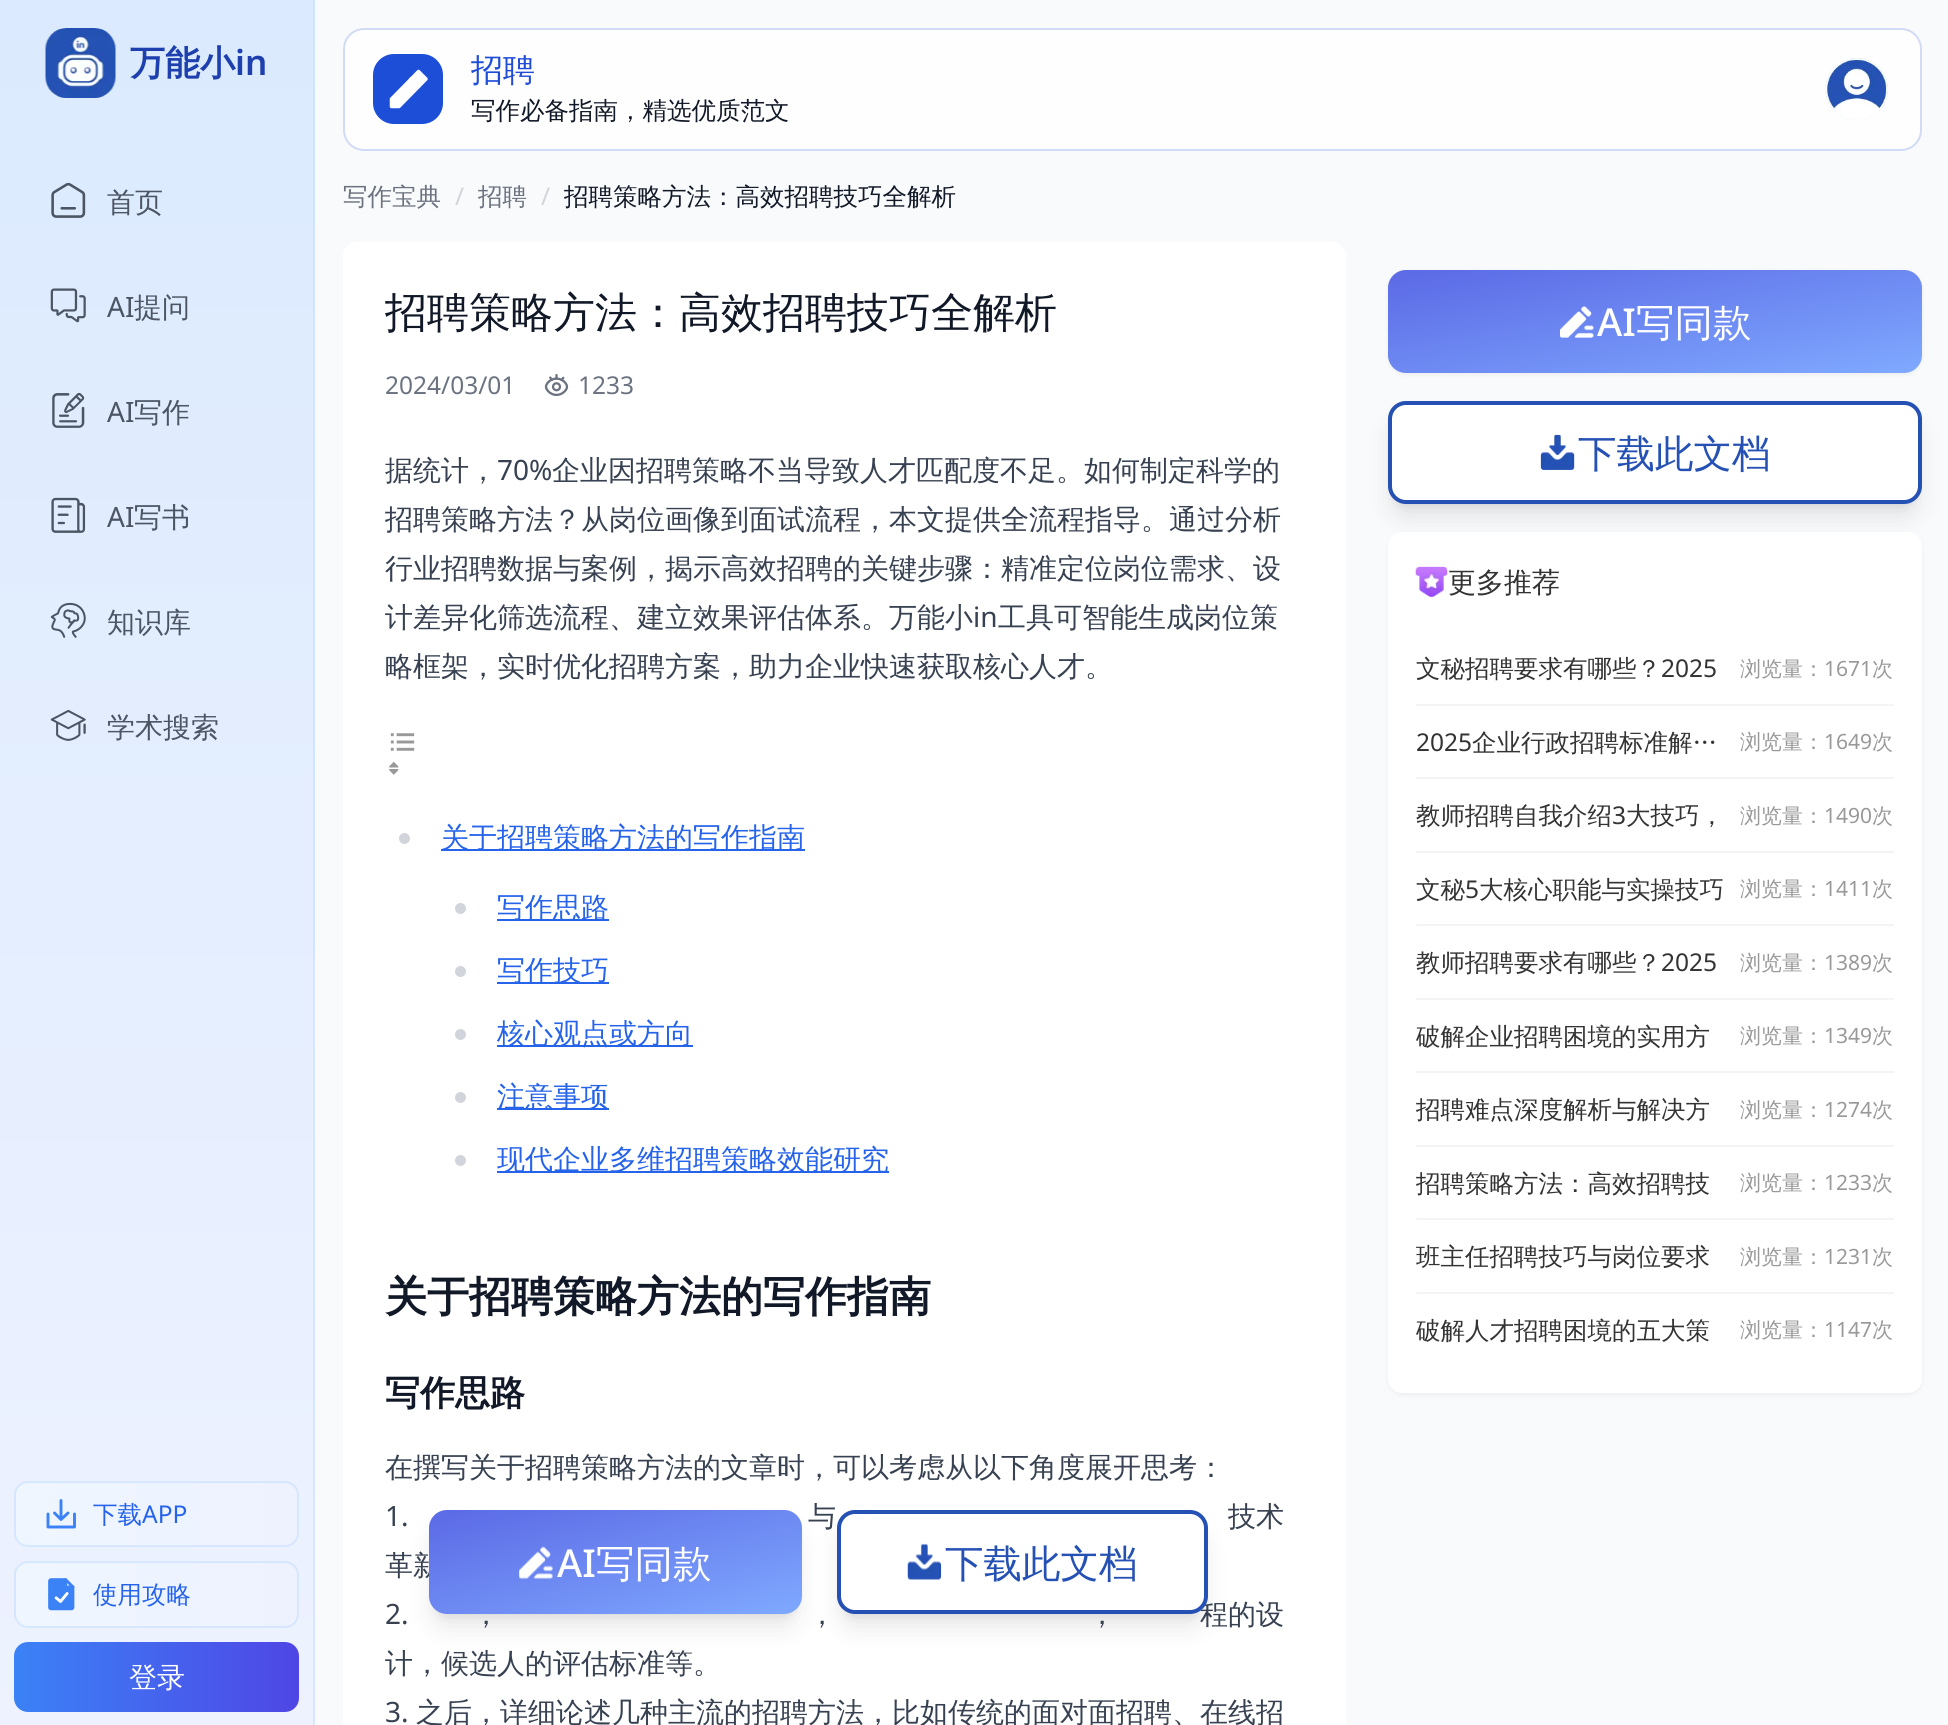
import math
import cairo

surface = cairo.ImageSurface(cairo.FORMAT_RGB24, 1948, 1725)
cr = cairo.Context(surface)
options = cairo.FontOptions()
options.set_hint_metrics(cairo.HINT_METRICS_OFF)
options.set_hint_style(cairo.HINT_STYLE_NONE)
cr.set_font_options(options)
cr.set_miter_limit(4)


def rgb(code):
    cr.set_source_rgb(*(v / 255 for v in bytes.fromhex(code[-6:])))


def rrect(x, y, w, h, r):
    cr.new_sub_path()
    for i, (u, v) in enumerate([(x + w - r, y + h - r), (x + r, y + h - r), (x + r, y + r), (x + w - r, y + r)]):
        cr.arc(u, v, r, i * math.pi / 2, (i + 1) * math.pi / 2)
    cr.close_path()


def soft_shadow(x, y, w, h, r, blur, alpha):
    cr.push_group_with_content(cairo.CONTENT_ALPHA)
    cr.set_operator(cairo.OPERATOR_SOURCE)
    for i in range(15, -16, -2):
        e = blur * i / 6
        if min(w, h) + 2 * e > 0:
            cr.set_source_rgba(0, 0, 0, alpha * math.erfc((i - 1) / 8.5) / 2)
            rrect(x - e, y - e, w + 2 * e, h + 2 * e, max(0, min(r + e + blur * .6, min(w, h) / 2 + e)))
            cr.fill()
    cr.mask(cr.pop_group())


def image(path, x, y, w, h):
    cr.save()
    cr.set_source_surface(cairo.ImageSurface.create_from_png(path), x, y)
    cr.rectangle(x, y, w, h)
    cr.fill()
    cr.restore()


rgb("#f9fafb")
cr.paint()
gradient = cairo.LinearGradient(157, 0, 157, 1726)
gradient.add_color_stop_rgba(0, 0.859, 0.918, 0.996, 1)
gradient.add_color_stop_rgba(1, 0.933, 0.949, 1, 1)
cr.set_source(gradient)
cr.rectangle(0, 0, 313, 1725)
cr.fill()
gradient = cairo.LinearGradient(157, 0, 157, 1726)
gradient.add_color_stop_rgba(0, 0.804, 0.89, 0.996, 1)
gradient.add_color_stop_rgba(1, 0.843, 0.906, 1, 1)
cr.set_source(gradient)
cr.rectangle(313, 0, 2, 1725)
cr.fill()
image("img/1.png", 45, 28, 71, 70)
image("img/2.png", 51, 182, 35, 36)
image("img/3.png", 50, 288, 36, 35)
image("img/4.png", 52, 392, 33, 36)
image("img/5.png", 51, 497, 35, 36)
image("img/6.png", 50, 602, 36, 36)
image("img/7.png", 50, 709, 36, 32)
cr.save()
rrect(14, 1481, 285, 66, 14)
cr.clip()
gradient = cairo.LinearGradient(-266, 1514, 16, 1514)
gradient.add_color_stop_rgba(0, 0.937, 0.965, 1, 1)
gradient.add_color_stop_rgba(1, 0.933, 0.949, 1, 1)
cr.set_source(gradient)
cr.rectangle(14, 1481, 2, 66)
cr.fill()
gradient = cairo.LinearGradient(16, 1514, 298, 1514)
gradient.add_color_stop_rgba(0, 0.937, 0.965, 1, 1)
gradient.add_color_stop_rgba(1, 0.933, 0.949, 1, 1)
cr.set_source(gradient)
cr.rectangle(16, 1481, 282, 66)
cr.fill()
gradient = cairo.LinearGradient(298, 1514, 579, 1514)
gradient.add_color_stop_rgba(0, 0.937, 0.965, 1, 1)
gradient.add_color_stop_rgba(1, 0.933, 0.949, 1, 1)
cr.set_source(gradient)
cr.rectangle(298, 1490, 1, 48)
cr.fill()
cr.restore()
rrect(15, 1482, 283, 64, 13)
cr.set_source_rgba(0.749, 0.859, 0.996, 0.5)
cr.stroke()
cr.new_path()
cr.move_to(48, 1514)
cr.line_to(48, 1527)
cr.line_to(74.5, 1527)
cr.line_to(74.5, 1514)
cr.move_to(68, 1513)
cr.line_to(61, 1519.5)
cr.line_to(54.5, 1513)
cr.move_to(61, 1500.5)
cr.line_to(61, 1519.5)
rgb("#3b82f6")
cr.set_line_width(2.9)
cr.set_line_cap(cairo.LINE_CAP_ROUND)
cr.set_line_join(cairo.LINE_JOIN_ROUND)
cr.stroke()
cr.save()
rrect(14, 1561, 285, 67, 14)
cr.clip()
gradient = cairo.LinearGradient(16, 1594, 298, 1594)
gradient.add_color_stop_rgba(0, 0.937, 0.965, 1, 1)
gradient.add_color_stop_rgba(1, 0.933, 0.949, 1, 1)
cr.set_source(gradient)
cr.rectangle(16, 1561, 282, 67)
cr.fill()
gradient = cairo.LinearGradient(298, 1594, 579, 1594)
gradient.add_color_stop_rgba(0, 0.937, 0.965, 1, 1)
gradient.add_color_stop_rgba(1, 0.933, 0.949, 1, 1)
cr.set_source(gradient)
cr.rectangle(298, 1570, 1, 49)
cr.fill()
cr.restore()
rrect(15, 1562, 283, 65, 13)
cr.set_source_rgba(0.749, 0.859, 0.996, 0.5)
cr.set_line_width(2)
cr.set_line_cap(cairo.LINE_CAP_BUTT)
cr.set_line_join(cairo.LINE_JOIN_MITER)
cr.stroke()
image("img/8.png", 48, 1578, 27, 33)
gradient = cairo.LinearGradient(14, 1677, 299, 1677)
gradient.add_color_stop_rgba(0, 0.231, 0.51, 0.965, 1)
gradient.add_color_stop_rgba(1, 0.31, 0.275, 0.898, 1)
cr.set_source(gradient)
rrect(14, 1642, 285, 70, 14)
cr.fill()
rgb("#fefefe")
rrect(344, 29, 1577, 121, 20)
cr.fill_preserve()
rgb("#d1dbf6")
cr.stroke()
rgb("#1d4ed8")
rrect(373, 54, 70, 70, 21)
cr.fill()
rgb("#ffffff")
cr.new_path()
cr.move_to(391.5, 106.5)
cr.line_to(399, 106.5)
cr.line_to(426, 79)
cr.line_to(418.5, 71.5)
cr.line_to(391.5, 99)
cr.close_path()
cr.fill_preserve()
cr.set_line_width(3.5)
cr.set_line_join(cairo.LINE_JOIN_ROUND)
cr.stroke()
cr.new_path()
cr.move_to(411, 79)
cr.line_to(418.5, 86.5)
cr.set_line_cap(cairo.LINE_CAP_ROUND)
cr.stroke()
image("img/9.png", 1825, 58, 63, 62)
cr.new_path()
cr.move_to(357, 242)
cr.line_to(1332, 242)
cr.curve_to(1339.5, 242, 1346, 248.5, 1346, 256)
cr.line_to(1346, 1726)
cr.line_to(343, 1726)
cr.line_to(343, 256)
cr.curve_to(343, 248.5, 349.5, 242, 357, 242)
cr.close_path()
cr.fill()
image("img/10.png", 544, 374, 25, 23)
image("img/11.png", 390, 733, 25, 18)
image("img/12.png", 389, 761, 10, 14)
rgb("#d1d5db")
cr.arc(404.5, 838.5, 5.5, 0, 2 * math.pi)
cr.fill()
rgb("#2563eb")
cr.rectangle(441, 849, 364, 2)
cr.fill()
rgb("#d1d5db")
cr.arc(460.5, 908.5, 5.5, 0, 2 * math.pi)
cr.fill()
rgb("#2563eb")
cr.rectangle(497, 919, 112, 2)
cr.fill()
rgb("#d1d5db")
cr.arc(460.5, 971.5, 5.5, 0, 2 * math.pi)
cr.fill()
rgb("#2563eb")
cr.rectangle(497, 982, 112, 2)
cr.fill()
rgb("#d1d5db")
cr.arc(460.5, 1034.5, 5.5, 0, 2 * math.pi)
cr.fill()
rgb("#2563eb")
cr.rectangle(497, 1045, 196, 2)
cr.fill()
rgb("#d1d5db")
cr.arc(460.5, 1097.5, 5.5, 0, 2 * math.pi)
cr.fill()
rgb("#2563eb")
cr.rectangle(497, 1108, 112, 2)
cr.fill()
rgb("#d1d5db")
cr.arc(460.5, 1160.5, 5.5, 0, 2 * math.pi)
cr.fill()
rgb("#2563eb")
cr.rectangle(497, 1171, 392, 2)
cr.fill()
rgb("#000000")
soft_shadow(436, 1524, 359, 90, 11, 5, 0.1)
soft_shadow(434, 1533, 362, 93, 12, 13, 0.1)
soft_shadow(844, 1524, 357, 90, 11, 5, 0.1)
soft_shadow(842, 1533, 360, 93, 12, 13, 0.1)
soft_shadow(1388, 271, 534, 104, 18, 2, 0.05)
gradient = cairo.LinearGradient(1635, 222, 1674, 421)
gradient.add_color_stop_rgba(0, 0.357, 0.412, 0.898, 1)
gradient.add_color_stop_rgba(1, 0.498, 0.663, 1, 1)
cr.set_source(gradient)
rrect(1388, 270, 534, 103, 18)
cr.fill()
image("img/15.png", 1560, 306, 34, 32)
rgb("#000000")
soft_shadow(1395, 415, 520, 89, 11, 5, 0.1)
soft_shadow(1393, 424, 523, 92, 12, 13, 0.1)
rgb("#ffffff")
rrect(1390, 403, 530, 99, 16)
cr.fill_preserve()
rgb("#2551b5")
cr.set_line_width(4)
cr.set_line_cap(cairo.LINE_CAP_BUTT)
cr.set_line_join(cairo.LINE_JOIN_MITER)
cr.stroke()
image("img/16.png", 1540, 434, 35, 36)
rgb("#000000")
soft_shadow(1388, 534, 534, 861, 14, 2, 0.05)
rgb("#ffffff")
rrect(1388, 532, 534, 861, 14)
cr.fill()
image("img/17.png", 1415, 566, 33, 32)
for x, y, w, h, color in [
    (1416, 704, 478, 2, "#f3f4f6"),
    (1416, 777, 478, 2, "#f3f4f6"),
    (1416, 851, 478, 2, "#f3f4f6"),
    (1416, 924, 478, 2, "#f3f4f6"),
    (1416, 998, 478, 2, "#f3f4f6"),
    (1416, 1071, 478, 2, "#f3f4f6"),
    (1416, 1145, 478, 2, "#f3f4f6"),
    (1416, 1218, 478, 2, "#f3f4f6"),
    (1416, 1292, 478, 2, "#f3f4f6"),
]:
    rgb(color)
    cr.rectangle(x, y, w, h)
    cr.fill()
cr.select_font_face("WenQuanYi Zen Hei", cairo.FONT_SLANT_NORMAL, cairo.FONT_WEIGHT_BOLD)
cr.set_font_size(35)
rgb("#1e40af")
cr.move_to(130, 75)
cr.show_text("万能小")
cr.select_font_face("Noto Sans SemiBold")
cr.move_to(235, 75)
cr.show_text("in")
cr.select_font_face("WenQuanYi Zen Hei Medium")
cr.set_font_size(28)
rgb("#4b5563")
cr.move_to(107, 212)
cr.show_text("首页")
cr.select_font_face("Noto Sans")
cr.move_to(107, 317)
cr.show_text("AI")
cr.select_font_face("WenQuanYi Zen Hei Medium")
cr.move_to(134, 317)
cr.show_text("提问")
cr.select_font_face("Noto Sans")
cr.move_to(107, 422)
cr.show_text("AI")
cr.select_font_face("WenQuanYi Zen Hei Medium")
cr.move_to(134, 422)
cr.show_text("写作")
cr.select_font_face("Noto Sans")
cr.move_to(107, 527)
cr.show_text("AI")
cr.select_font_face("WenQuanYi Zen Hei Medium")
for x, y, s in [
    (134, 527, "写书"),
    (107, 632, "知识库"),
    (107, 737, "学术搜索"),
]:
    cr.move_to(x, y)
    cr.show_text(s)
cr.set_font_size(24.5)
rgb("#2563eb")
cr.move_to(93, 1523)
cr.show_text("下载")
cr.select_font_face("Noto Sans")
cr.move_to(142, 1523)
cr.show_text("APP")
cr.select_font_face("WenQuanYi Zen Hei Medium")
cr.move_to(93, 1603)
cr.show_text("使用攻略")
cr.set_font_size(28)
rgb("#ffffff")
cr.move_to(129, 1687)
cr.show_text("登录")
cr.set_font_size(32)
gradient = cairo.LinearGradient(471, 68, 961, 68)
gradient.add_color_stop_rgba(0, 0.114, 0.306, 0.847, 1)
gradient.add_color_stop_rgba(1, 0.263, 0.22, 0.792, 1)
cr.set_source(gradient)
cr.move_to(471, 81)
cr.show_text("招聘")
cr.set_font_size(24.5)
rgb("#111827")
cr.move_to(471, 119)
cr.show_text("写作必备指南，精选优质范文")
rgb("#6b7280")
cr.move_to(343, 205)
cr.show_text("写作宝典")
cr.select_font_face("Noto Sans")
rgb("#d1d5db")
cr.move_to(455, 205)
cr.show_text("/")
cr.select_font_face("WenQuanYi Zen Hei Medium")
rgb("#6b7280")
cr.move_to(478, 205)
cr.show_text("招聘")
cr.select_font_face("Noto Sans")
rgb("#d1d5db")
cr.move_to(541, 205)
cr.show_text("/")
cr.select_font_face("WenQuanYi Zen Hei Medium")
rgb("#111827")
cr.move_to(564, 205)
cr.show_text("招聘策略方法：高效招聘技巧全解析")
cr.set_font_size(42)
cr.move_to(385, 327)
cr.show_text("招聘策略方法：高效招聘技巧全解析")
cr.select_font_face("Noto Sans")
cr.set_font_size(24.5)
rgb("#6b7280")
cr.move_to(385, 394)
cr.show_text("2024/03/01")
cr.move_to(578, 394)
cr.show_text("1233")
cr.select_font_face("WenQuanYi Zen Hei Medium")
cr.set_font_size(28)
rgb("#374151")
cr.move_to(385, 480)
cr.show_text("据统计，")
cr.select_font_face("Noto Sans")
cr.move_to(497, 480)
cr.show_text("70%")
cr.select_font_face("WenQuanYi Zen Hei Medium")
for x, y, s in [
    (552, 480, "企业因招聘策略不当导致人才匹配度不足。如何制定科学的"),
    (385, 529, "招聘策略方法？从岗位画像到面试流程，本文提供全流程指导。通过分析"),
    (385, 578, "行业招聘数据与案例，揭示高效招聘的关键步骤：精准定位岗位需求、设"),
    (385, 627, "计差异化筛选流程、建立效果评估体系。万能小"),
]:
    cr.move_to(x, y)
    cr.show_text(s)
cr.select_font_face("Noto Sans")
cr.move_to(973, 627)
cr.show_text("in")
cr.select_font_face("WenQuanYi Zen Hei Medium")
cr.move_to(998, 627)
cr.show_text("工具可智能生成岗位策")
cr.move_to(385, 676)
cr.show_text("略框架，实时优化招聘方案，助力企业快速获取核心人才。")
rgb("#2563eb")
for x, y, s in [
    (441, 847, "关于招聘策略方法的写作指南"),
    (497, 917, "写作思路"),
    (497, 980, "写作技巧"),
    (497, 1043, "核心观点或方向"),
    (497, 1106, "注意事项"),
    (497, 1169, "现代企业多维招聘策略效能研究"),
]:
    cr.move_to(x, y)
    cr.show_text(s)
cr.select_font_face("WenQuanYi Zen Hei", cairo.FONT_SLANT_NORMAL, cairo.FONT_WEIGHT_BOLD)
cr.set_font_size(42)
rgb("#111827")
cr.move_to(385, 1311)
cr.show_text("关于招聘策略方法的写作指南")
cr.set_font_size(35)
cr.move_to(385, 1405)
cr.show_text("写作思路")
cr.select_font_face("WenQuanYi Zen Hei Medium")
cr.set_font_size(28)
rgb("#374151")
cr.move_to(385, 1477)
cr.show_text("在撰写关于招聘策略方法的文章时，可以考虑从以下角度展开思考：")
cr.select_font_face("Noto Sans")
cr.move_to(385, 1526)
cr.show_text("1.")
cr.select_font_face("WenQuanYi Zen Hei Medium")
for x, y, s in [
    (808, 1526, "与"),
    (1228, 1526, "技术"),
    (385, 1575, "革新"),
]:
    cr.move_to(x, y)
    cr.show_text(s)
cr.select_font_face("Noto Sans")
cr.move_to(385, 1624)
cr.show_text("2.")
cr.select_font_face("WenQuanYi Zen Hei Medium")
for x, y, s in [
    (472, 1624, "，"),
    (808, 1624, "，"),
    (1088, 1624, "，"),
    (1200, 1624, "程的设"),
    (385, 1673, "计，候选人的评估标准等。"),
]:
    cr.move_to(x, y)
    cr.show_text(s)
cr.select_font_face("Noto Sans")
cr.move_to(385, 1722)
cr.show_text("3.")
cr.select_font_face("WenQuanYi Zen Hei Medium")
cr.move_to(416, 1722)
cr.show_text("之后，详细论述几种主流的招聘方法，比如传统的面对面招聘、在线招")
gradient = cairo.LinearGradient(589, 1466, 642, 1658)
gradient.add_color_stop_rgba(0, 0.357, 0.412, 0.898, 1)
gradient.add_color_stop_rgba(1, 0.498, 0.663, 1, 1)
cr.set_source(gradient)
rrect(429, 1510, 373, 104, 18)
cr.fill()
image("img/13.png", 519, 1546, 34, 33)
cr.select_font_face("Noto Sans Medium")
cr.set_font_size(38.5)
rgb("#ffffff")
cr.move_to(557, 1577)
cr.show_text("AI")
cr.select_font_face("WenQuanYi Zen Hei Medium")
cr.move_to(596, 1577)
cr.show_text("写同款")
rrect(839, 1512, 367, 100, 16)
cr.fill_preserve()
rgb("#2551b5")
cr.stroke()
image("img/14.png", 907, 1543, 35, 37)
cr.move_to(945, 1577)
cr.show_text("下载此文档")
cr.select_font_face("Noto Sans Medium")
rgb("#ffffff")
cr.move_to(1597, 336)
cr.show_text("AI")
cr.select_font_face("WenQuanYi Zen Hei Medium")
cr.move_to(1636, 336)
cr.show_text("写同款")
rgb("#2551b5")
cr.move_to(1578, 467)
cr.show_text("下载此文档")
cr.set_font_size(28)
rgb("#333333")
cr.move_to(1448, 592)
cr.show_text("更多推荐")
cr.set_font_size(24.5)
cr.move_to(1416, 677)
cr.show_text("文秘招聘要求有哪些？")
cr.select_font_face("Noto Sans")
cr.move_to(1661, 677)
cr.show_text("2025")
cr.select_font_face("WenQuanYi Zen Hei Medium")
cr.set_font_size(21)
rgb("#999999")
cr.move_to(1740, 676)
cr.show_text("浏览量：")
cr.select_font_face("Noto Sans")
cr.move_to(1824, 676)
cr.show_text("1671")
cr.select_font_face("WenQuanYi Zen Hei Medium")
cr.move_to(1872, 676)
cr.show_text("次")
cr.select_font_face("Noto Sans")
cr.set_font_size(24.5)
rgb("#333333")
cr.move_to(1416, 751)
cr.show_text("2025")
cr.select_font_face("WenQuanYi Zen Hei Medium")
cr.move_to(1472, 751)
cr.show_text("企业行政招聘标准解…")
cr.set_font_size(21)
rgb("#999999")
cr.move_to(1740, 749)
cr.show_text("浏览量：")
cr.select_font_face("Noto Sans")
cr.move_to(1824, 749)
cr.show_text("1649")
cr.select_font_face("WenQuanYi Zen Hei Medium")
cr.move_to(1872, 749)
cr.show_text("次")
cr.set_font_size(24.5)
rgb("#333333")
cr.move_to(1416, 824)
cr.show_text("教师招聘自我介绍")
cr.select_font_face("Noto Sans")
cr.move_to(1612, 824)
cr.show_text("3")
cr.select_font_face("WenQuanYi Zen Hei Medium")
cr.move_to(1626, 824)
cr.show_text("大技巧，")
cr.set_font_size(21)
rgb("#999999")
cr.move_to(1740, 823)
cr.show_text("浏览量：")
cr.select_font_face("Noto Sans")
cr.move_to(1824, 823)
cr.show_text("1490")
cr.select_font_face("WenQuanYi Zen Hei Medium")
cr.move_to(1872, 823)
cr.show_text("次")
cr.set_font_size(24.5)
rgb("#333333")
cr.move_to(1416, 898)
cr.show_text("文秘")
cr.select_font_face("Noto Sans")
cr.move_to(1465, 898)
cr.show_text("5")
cr.select_font_face("WenQuanYi Zen Hei Medium")
cr.move_to(1479, 898)
cr.show_text("大核心职能与实操技巧")
cr.set_font_size(21)
rgb("#999999")
cr.move_to(1740, 896)
cr.show_text("浏览量：")
cr.select_font_face("Noto Sans")
cr.move_to(1824, 896)
cr.show_text("1411")
cr.select_font_face("WenQuanYi Zen Hei Medium")
cr.move_to(1872, 896)
cr.show_text("次")
cr.set_font_size(24.5)
rgb("#333333")
cr.move_to(1416, 971)
cr.show_text("教师招聘要求有哪些？")
cr.select_font_face("Noto Sans")
cr.move_to(1661, 971)
cr.show_text("2025")
cr.select_font_face("WenQuanYi Zen Hei Medium")
cr.set_font_size(21)
rgb("#999999")
cr.move_to(1740, 970)
cr.show_text("浏览量：")
cr.select_font_face("Noto Sans")
cr.move_to(1824, 970)
cr.show_text("1389")
cr.select_font_face("WenQuanYi Zen Hei Medium")
cr.move_to(1872, 970)
cr.show_text("次")
cr.set_font_size(24.5)
rgb("#333333")
cr.move_to(1416, 1045)
cr.show_text("破解企业招聘困境的实用方")
cr.set_font_size(21)
rgb("#999999")
cr.move_to(1740, 1043)
cr.show_text("浏览量：")
cr.select_font_face("Noto Sans")
cr.move_to(1824, 1043)
cr.show_text("1349")
cr.select_font_face("WenQuanYi Zen Hei Medium")
cr.move_to(1872, 1043)
cr.show_text("次")
cr.set_font_size(24.5)
rgb("#333333")
cr.move_to(1416, 1118)
cr.show_text("招聘难点深度解析与解决方")
cr.set_font_size(21)
rgb("#999999")
cr.move_to(1740, 1117)
cr.show_text("浏览量：")
cr.select_font_face("Noto Sans")
cr.move_to(1824, 1117)
cr.show_text("1274")
cr.select_font_face("WenQuanYi Zen Hei Medium")
cr.move_to(1872, 1117)
cr.show_text("次")
cr.set_font_size(24.5)
rgb("#333333")
cr.move_to(1416, 1192)
cr.show_text("招聘策略方法：高效招聘技")
cr.set_font_size(21)
rgb("#999999")
cr.move_to(1740, 1190)
cr.show_text("浏览量：")
cr.select_font_face("Noto Sans")
cr.move_to(1824, 1190)
cr.show_text("1233")
cr.select_font_face("WenQuanYi Zen Hei Medium")
cr.move_to(1872, 1190)
cr.show_text("次")
cr.set_font_size(24.5)
rgb("#333333")
cr.move_to(1416, 1265)
cr.show_text("班主任招聘技巧与岗位要求")
cr.set_font_size(21)
rgb("#999999")
cr.move_to(1740, 1264)
cr.show_text("浏览量：")
cr.select_font_face("Noto Sans")
cr.move_to(1824, 1264)
cr.show_text("1231")
cr.select_font_face("WenQuanYi Zen Hei Medium")
cr.move_to(1872, 1264)
cr.show_text("次")
cr.set_font_size(24.5)
rgb("#333333")
cr.move_to(1416, 1339)
cr.show_text("破解人才招聘困境的五大策")
cr.set_font_size(21)
rgb("#999999")
cr.move_to(1740, 1337)
cr.show_text("浏览量：")
cr.select_font_face("Noto Sans")
cr.move_to(1824, 1337)
cr.show_text("1147")
cr.select_font_face("WenQuanYi Zen Hei Medium")
cr.move_to(1872, 1337)
cr.show_text("次")
surface.write_to_png("page.png")
